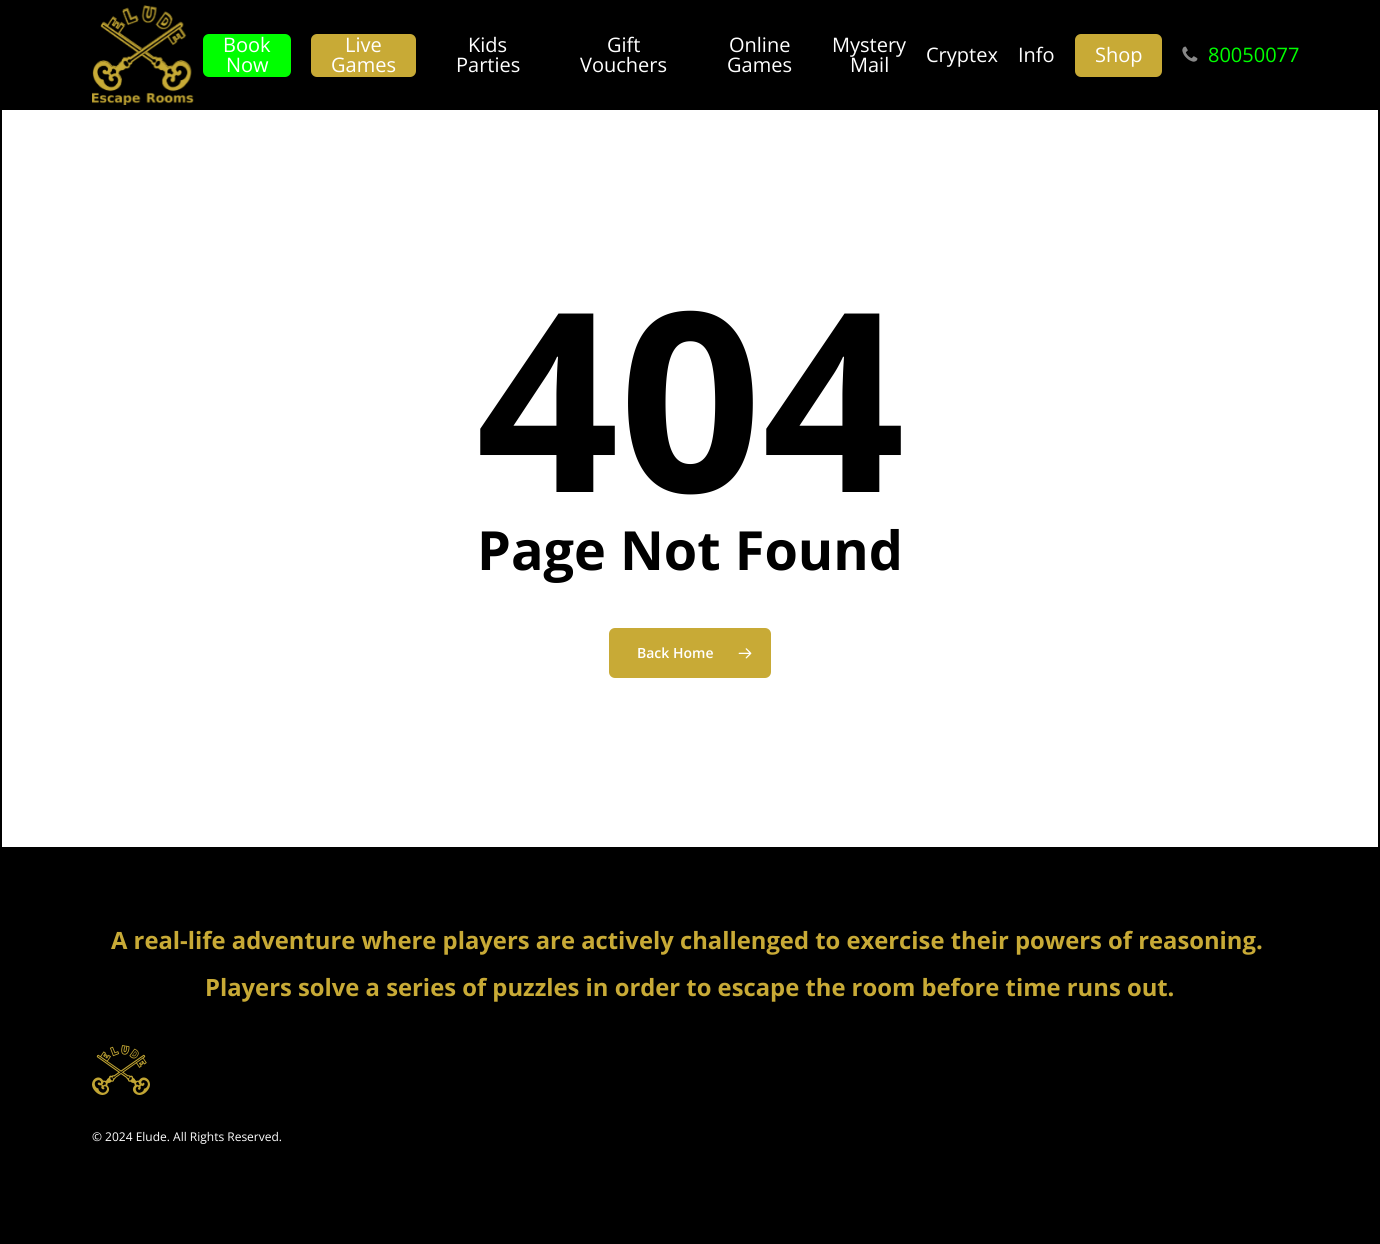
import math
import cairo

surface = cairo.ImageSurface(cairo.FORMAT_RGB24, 1380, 1244)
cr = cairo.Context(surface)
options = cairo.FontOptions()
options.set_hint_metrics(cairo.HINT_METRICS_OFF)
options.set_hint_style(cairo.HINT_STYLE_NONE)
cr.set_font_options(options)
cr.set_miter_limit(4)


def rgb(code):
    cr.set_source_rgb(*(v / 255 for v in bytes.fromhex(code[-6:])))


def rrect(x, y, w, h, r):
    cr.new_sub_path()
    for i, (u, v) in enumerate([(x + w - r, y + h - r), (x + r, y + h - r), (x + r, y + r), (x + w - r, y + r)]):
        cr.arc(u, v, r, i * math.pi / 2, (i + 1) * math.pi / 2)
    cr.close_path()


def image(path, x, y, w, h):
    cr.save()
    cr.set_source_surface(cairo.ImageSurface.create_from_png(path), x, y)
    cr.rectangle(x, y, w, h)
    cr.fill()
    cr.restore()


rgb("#ffffff")
cr.paint()
for x, y, w, h, color in [
    (1378, 0, 2, 1244, "#000000"),
    (0, 1242, 1380, 2, "#000000"),
    (0, 0, 2, 1244, "#000000"),
    (2, 0, 1376, 110, "#000000"),
]:
    rgb(color)
    cr.rectangle(x, y, w, h)
    cr.fill()
image("img/1.png", 92, 5, 102, 100)
rgb("#00ff00")
rrect(203, 34, 88, 43, 6)
cr.fill()
rgb("#c8aa36")
rrect(311, 34, 105, 43, 6)
cr.fill()
rrect(1075, 34, 87, 43, 6)
cr.fill()
image("img/2.png", 1182, 46, 16, 16)
rrect(609, 628, 162, 50, 6)
cr.fill()
image("img/3.png", 738, 648, 14, 11)
rgb("#000000")
cr.rectangle(2, 847, 1376, 395)
cr.fill()
image("img/4.png", 92, 1045, 58, 50)
cr.select_font_face("Open Sans")
cr.set_font_size(20)
rgb("#ffffff")
for x, y, s in [
    (223, 52, "Book"),
    (226, 72, "Now"),
    (345, 52, "Live"),
    (331, 72, "Games"),
    (468, 52, "Kids"),
    (456, 72, "Parties"),
    (607, 52, "Gift"),
    (580, 72, "Vouchers"),
    (729, 52, "Online"),
    (727, 72, "Games"),
    (832, 52, "Mystery"),
    (850, 72, "Mail"),
    (926, 62, "Cryptex"),
    (1018, 62, "Info"),
    (1095, 62, "Shop"),
]:
    cr.move_to(x, y)
    cr.show_text(s)
rgb("#00ff00")
cr.move_to(1208, 62)
cr.show_text("80050077")
cr.select_font_face("Open Sans", cairo.FONT_SLANT_NORMAL, cairo.FONT_WEIGHT_BOLD)
cr.set_font_size(250)
rgb("#000000")
cr.move_to(476, 492)
cr.show_text("404")
cr.set_font_size(54)
cr.move_to(477, 570)
cr.show_text("Page Not Found")
cr.select_font_face("Open Sans SemiBold")
cr.set_font_size(14)
rgb("#ffffff")
cr.move_to(637, 658)
cr.show_text("Back Home")
cr.select_font_face("Open Sans", cairo.FONT_SLANT_NORMAL, cairo.FONT_WEIGHT_BOLD)
cr.set_font_size(23.8)
rgb("#c8aa36")
cr.move_to(111, 949)
cr.show_text("A real-life adventure where players are actively challenged to exercise their powers of reasoning.")
cr.move_to(205, 996)
cr.show_text("Players solve a series of puzzles in order to escape the room before time runs out.")
cr.select_font_face("Open Sans")
cr.set_font_size(12)
rgb("#ffffff")
cr.move_to(92, 1141)
cr.show_text("© 2024 Elude. All Rights Reserved.")
surface.write_to_png("page.png")
